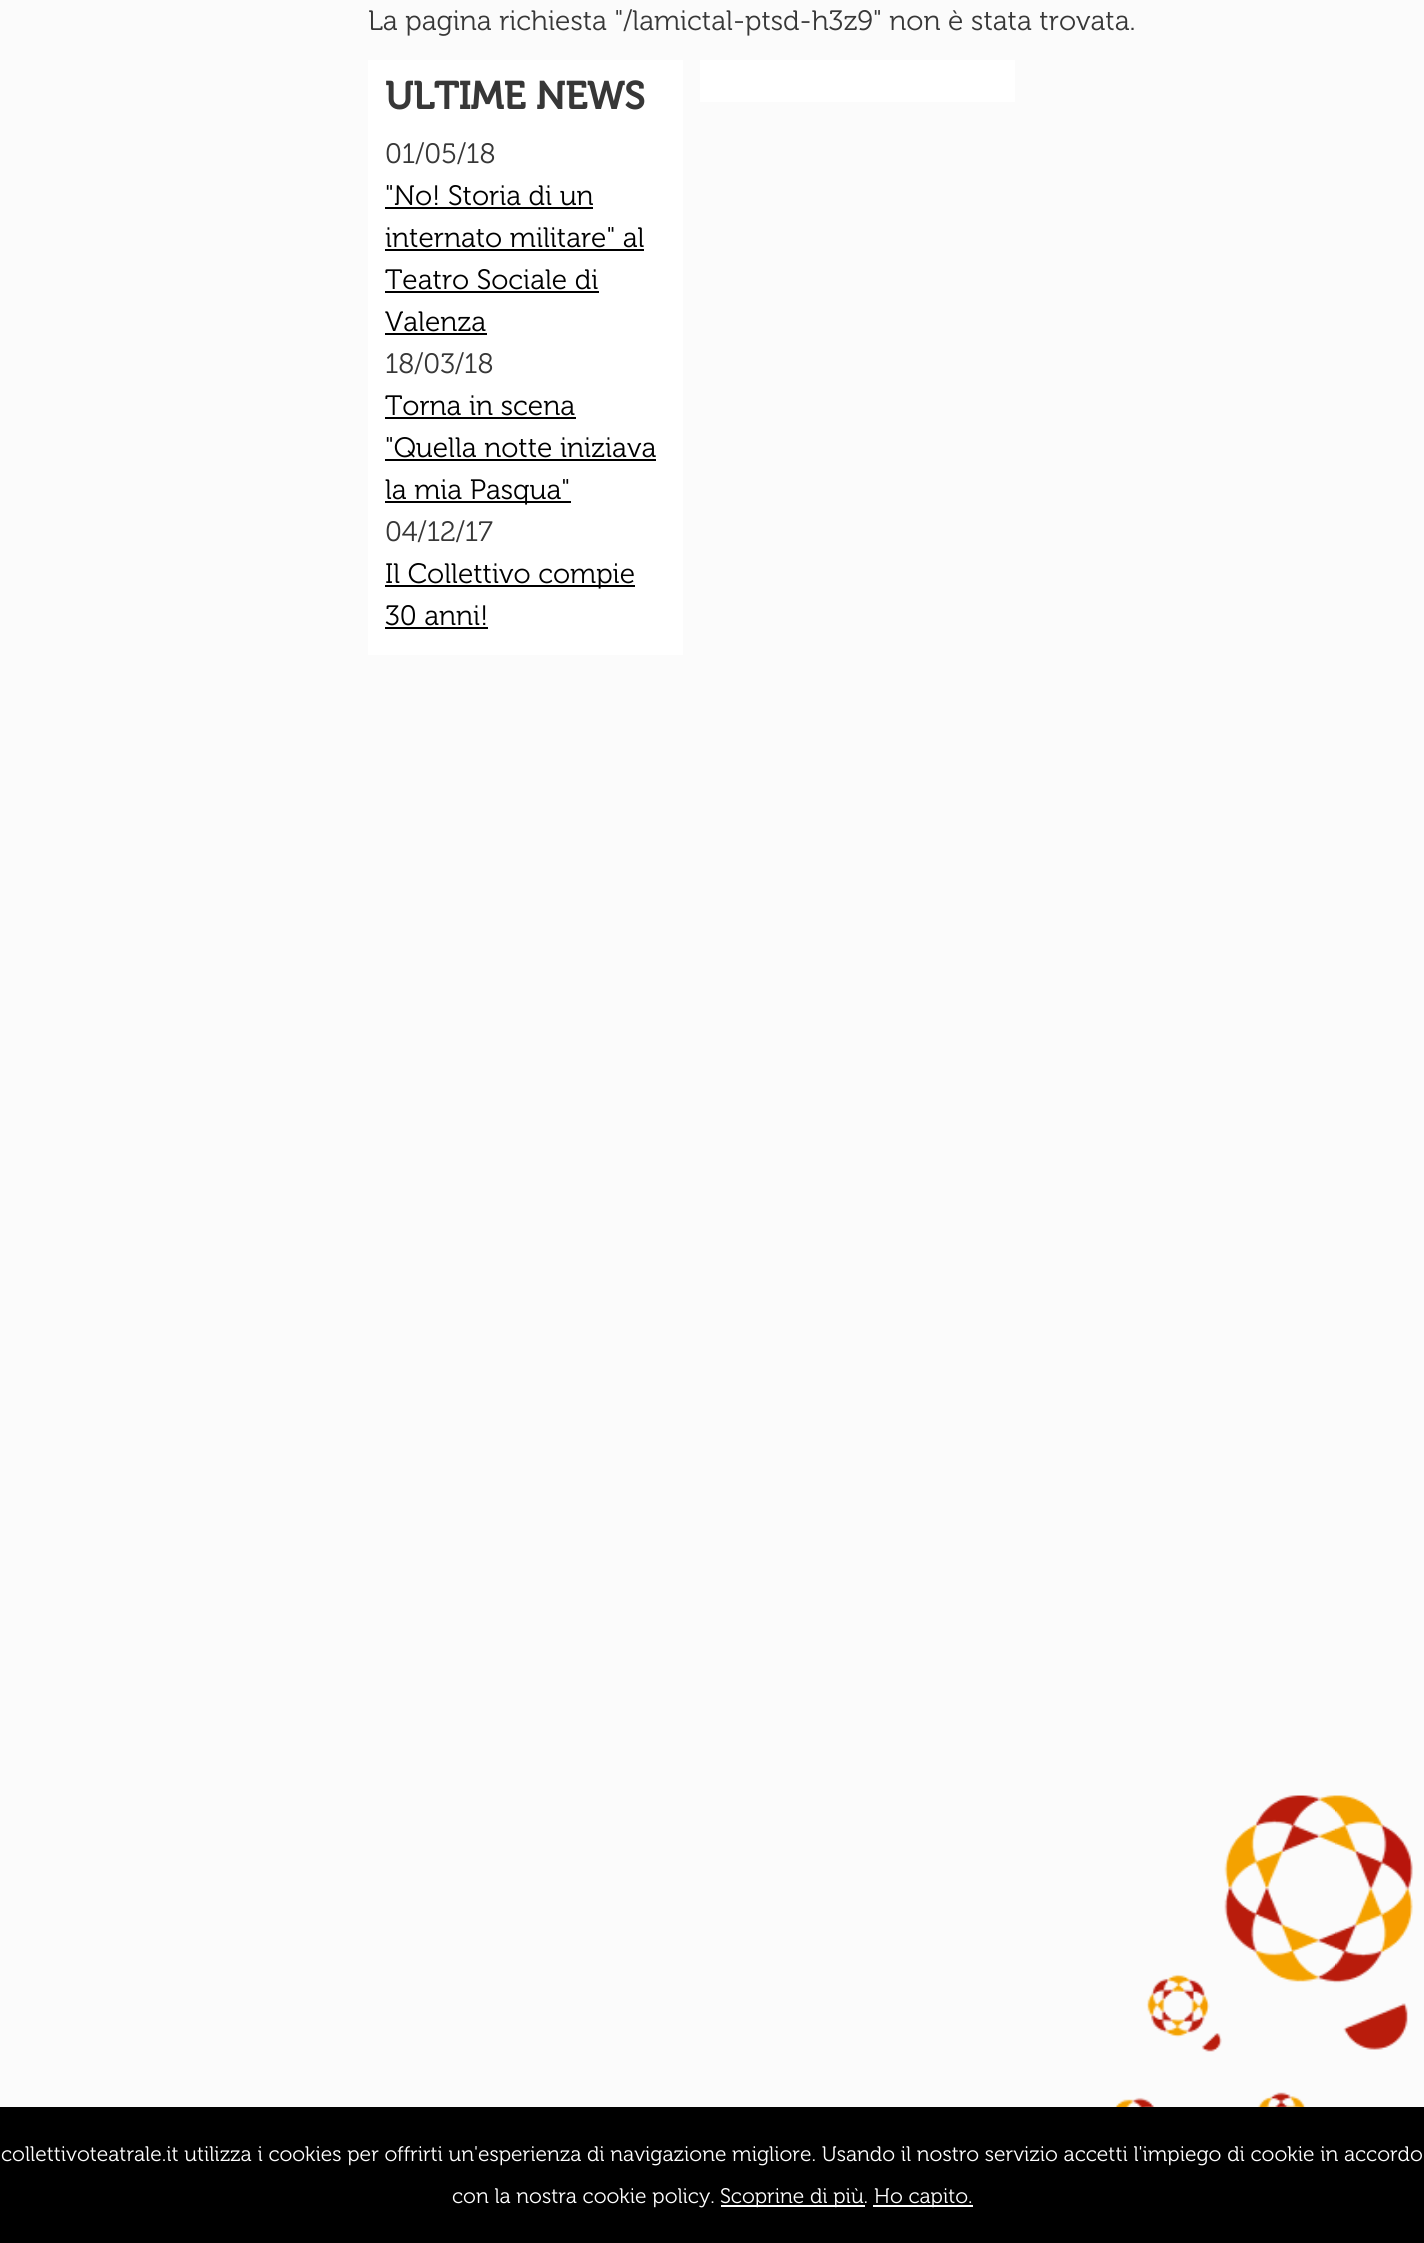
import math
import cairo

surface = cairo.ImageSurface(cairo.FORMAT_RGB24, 1424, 2243)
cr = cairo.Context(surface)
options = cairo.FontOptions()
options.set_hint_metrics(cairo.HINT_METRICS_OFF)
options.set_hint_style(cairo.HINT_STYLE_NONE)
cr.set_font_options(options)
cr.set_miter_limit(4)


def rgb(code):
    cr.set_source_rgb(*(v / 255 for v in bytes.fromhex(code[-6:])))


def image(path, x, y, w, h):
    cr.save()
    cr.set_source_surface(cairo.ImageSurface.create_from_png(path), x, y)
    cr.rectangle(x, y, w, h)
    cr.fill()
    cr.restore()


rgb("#fbfbfb")
cr.paint()
image("img/1.png", 1114, 1795, 299, 312)
for x, y, w, h, color in [
    (368, 60, 315, 595, "#ffffff"),
    (385, 207, 208, 2, "#000000"),
    (385, 249, 259, 2, "#000000"),
    (385, 291, 214, 2, "#000000"),
    (385, 333, 102, 2, "#000000"),
    (385, 417, 191, 2, "#000000"),
    (385, 459, 271, 2, "#000000"),
    (385, 501, 186, 2, "#000000"),
    (385, 585, 250, 2, "#000000"),
    (385, 627, 103, 2, "#000000"),
    (700, 60, 315, 42, "#ffffff"),
    (0, 2107, 1424, 136, "#000000"),
    (721, 2205, 144, 2, "#ffffff"),
    (873, 2205, 100, 2, "#ffffff"),
]:
    rgb(color)
    cr.rectangle(x, y, w, h)
    cr.fill()
cr.select_font_face("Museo")
cr.set_font_size(28)
rgb("#373737")
cr.move_to(368, 30)
cr.show_text("La pagina richiesta \"/lamictal-ptsd-h3z9\" non è stata trovata.")
cr.select_font_face("Museo", cairo.FONT_SLANT_NORMAL, cairo.FONT_WEIGHT_BOLD)
cr.set_font_size(38.5)
cr.move_to(385, 109)
cr.show_text("ULTIME NEWS")
cr.select_font_face("Museo")
cr.set_font_size(28)
cr.move_to(385, 163)
cr.show_text("01/05/18")
rgb("#000000")
for x, y, s in [
    (385, 205, "\"No! Storia di un"),
    (385, 247, "internato militare\" al"),
    (385, 289, "Teatro Sociale di"),
    (385, 331, "Valenza"),
]:
    cr.move_to(x, y)
    cr.show_text(s)
rgb("#373737")
cr.move_to(385, 373)
cr.show_text("18/03/18")
rgb("#000000")
for x, y, s in [
    (385, 415, "Torna in scena"),
    (385, 457, "\"Quella notte iniziava"),
    (385, 499, "la mia Pasqua\""),
]:
    cr.move_to(x, y)
    cr.show_text(s)
rgb("#373737")
cr.move_to(385, 541)
cr.show_text("04/12/17")
rgb("#000000")
cr.move_to(385, 583)
cr.show_text("Il Collettivo compie")
cr.move_to(385, 625)
cr.show_text("30 anni!")
cr.set_font_size(21)
rgb("#ffffff")
for x, y, s in [
    (1, 2161, "collettivoteatrale.it utilizza i cookies per offrirti un'esperienza di navigazione migliore. Usando il nostro servizio accetti l'impiego di cookie in accordo"),
    (452, 2203, "con la nostra cookie policy."),
    (720, 2203, "Scoprine di più."),
    (874, 2203, "Ho capito."),
]:
    cr.move_to(x, y)
    cr.show_text(s)
surface.write_to_png("page.png")
